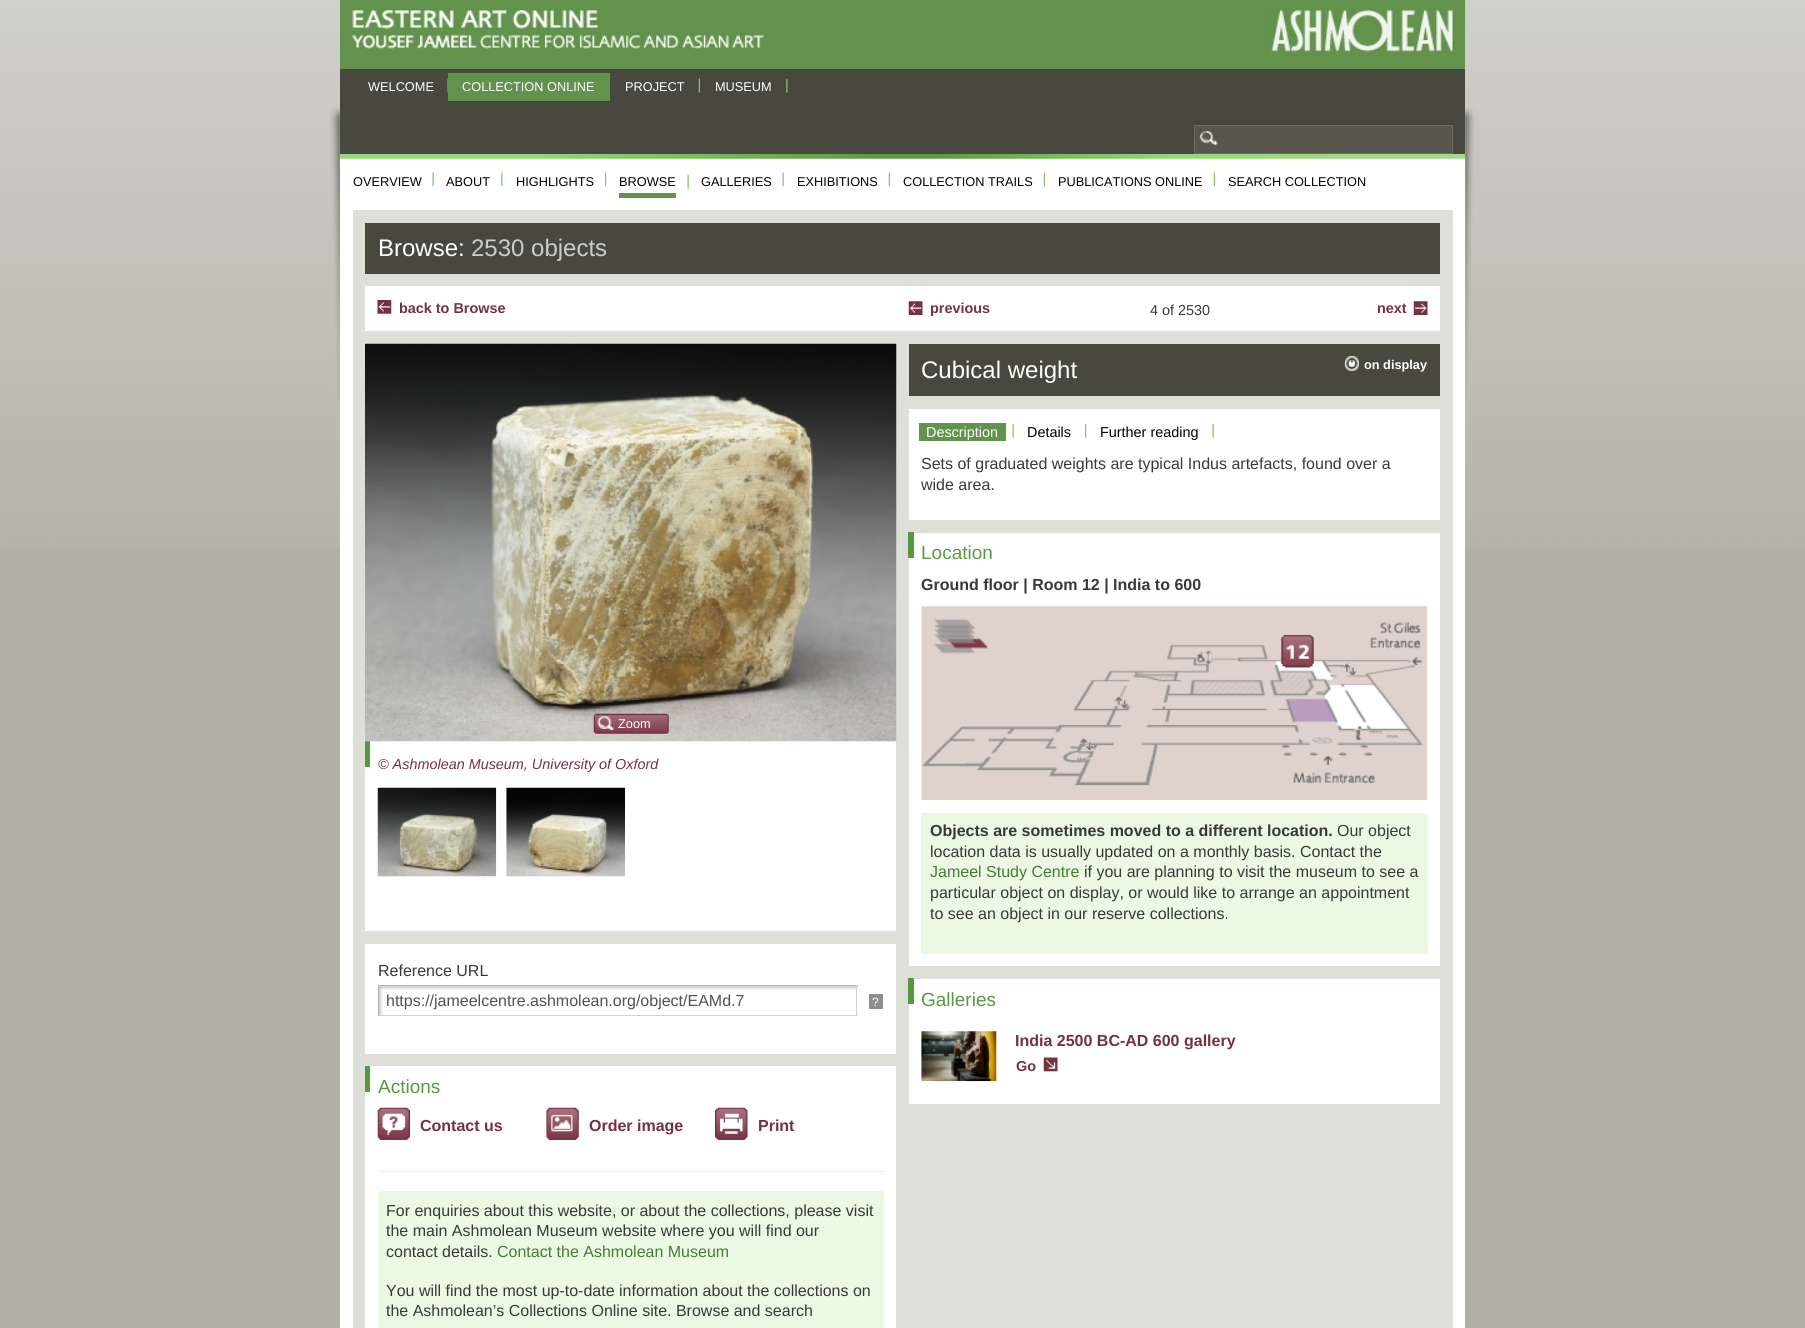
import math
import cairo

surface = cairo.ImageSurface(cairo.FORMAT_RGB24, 1805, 1328)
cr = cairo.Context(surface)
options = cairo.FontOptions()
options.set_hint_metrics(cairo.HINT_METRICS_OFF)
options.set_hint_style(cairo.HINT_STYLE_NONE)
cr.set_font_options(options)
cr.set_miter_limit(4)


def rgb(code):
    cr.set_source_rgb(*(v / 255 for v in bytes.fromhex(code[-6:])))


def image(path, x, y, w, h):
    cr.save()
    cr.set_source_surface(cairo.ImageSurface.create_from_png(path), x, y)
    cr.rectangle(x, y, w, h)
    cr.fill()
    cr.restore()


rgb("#b0b0a5")
cr.paint()
image("img/1.png", 0, 0, 1805, 548)
image("img/2.png", 330, 106, 1145, 296)
rgb("#62924c")
cr.rectangle(340, 0, 1125, 69)
cr.fill()
image("img/3.png", 352, 10, 412, 39)
image("img/4.png", 1271, 10, 182, 42)
rgb("#48483e")
cr.rectangle(340, 69, 1125, 85)
cr.fill()
image("img/5.png", 447, 78, 1, 15)
rgb("#62924c")
cr.rectangle(448, 73, 162, 28)
cr.fill()
image("img/6.png", 698, 78, 2, 15)
image("img/7.png", 786, 78, 2, 15)
rgb("#57574e")
cr.rectangle(1195, 126, 257, 27)
cr.fill()
image("img/8.png", 1199, 131, 19, 15)
cr.rectangle(1194.5, 125.5, 258, 28)
rgb("#6b6b5f")
cr.set_line_width(1)
cr.stroke()
rgb("#ffffff")
cr.rectangle(340, 158, 1125, 1170)
cr.fill()
image("img/9.png", 340, 154, 1125, 5)
image("img/10.png", 432, 172, 2, 15)
image("img/11.png", 501, 172, 2, 15)
image("img/12.png", 605, 172, 2, 15)
image("img/13.png", 687, 175, 2, 14)
rgb("#62924c")
cr.rectangle(619, 193, 57, 5)
cr.fill()
image("img/10.png", 782, 172, 2, 15)
image("img/14.png", 888, 172, 2, 15)
image("img/14.png", 1043, 172, 2, 15)
image("img/14.png", 1213, 172, 2, 15)
for x, y, w, h, color in [
    (353, 210, 1100, 1118, "#dfdfda"),
    (365, 223, 1075, 51, "#48483e"),
    (365, 286, 1075, 45, "#ffffff"),
]:
    rgb(color)
    cr.rectangle(x, y, w, h)
    cr.fill()
image("img/15.png", 377, 300, 15, 14)
image("img/16.png", 908, 301, 15, 14)
image("img/17.png", 1413, 301, 15, 14)
cr.rectangle(365, 741, 531, 587)
cr.fill()
rgb("#589940")
cr.rectangle(365, 741, 5, 26)
cr.fill()
image("img/18.png", 365, 343, 532, 399)
image("img/19.png", 593, 713, 76, 21)
image("img/20.png", 597, 716, 17, 14)
rgb("#dfdfda")
cr.rectangle(365, 931, 531, 13)
cr.fill()
image("img/21.png", 377, 787, 120, 90)
image("img/22.png", 506, 787, 119, 90)
cr.rectangle(365, 1054, 531, 12)
cr.fill()
image("img/23.png", 378, 986, 480, 31)
for x, y, w, h, color in [
    (378, 985, 480, 1, "#b4b4b4"),
    (856, 985, 1, 31, "#d3d3d3"),
    (378, 1015, 480, 1, "#d3d3d3"),
    (378, 985, 1, 31, "#b4b4b4"),
    (869, 994, 14, 15, "#8e8e8e"),
    (365, 1066, 5, 26, "#589940"),
]:
    rgb(color)
    cr.rectangle(x, y, w, h)
    cr.fill()
image("img/24.png", 377, 1107, 33, 33)
image("img/25.png", 546, 1107, 33, 33)
image("img/26.png", 715, 1107, 33, 33)
for x, y, w, h, color in [
    (378, 1171, 506, 1, "#e3f5db"),
    (378, 1191, 506, 137, "#eaf8e4"),
    (909, 409, 531, 695, "#ffffff"),
    (909, 344, 531, 52, "#48483e"),
]:
    rgb(color)
    cr.rectangle(x, y, w, h)
    cr.fill()
image("img/27.png", 1344, 356, 15, 15)
rgb("#dfdfda")
cr.rectangle(909, 520, 531, 13)
cr.fill()
image("img/28.png", 1012, 423, 2, 15)
rgb("#62924c")
cr.rectangle(919, 423, 87, 18)
cr.fill()
image("img/29.png", 1085, 423, 2, 15)
image("img/28.png", 1212, 423, 2, 15)
rgb("#589940")
cr.rectangle(908, 532, 6, 26)
cr.fill()
rgb("#dfdfda")
cr.rectangle(909, 966, 531, 13)
cr.fill()
image("img/30.png", 921, 606, 507, 194)
rgb("#eaf8e4")
cr.rectangle(921, 813, 507, 141)
cr.fill()
rgb("#589940")
cr.rectangle(908, 978, 6, 26)
cr.fill()
image("img/31.png", 921, 1031, 76, 51)
image("img/32.png", 1043, 1057, 15, 15)
cr.select_font_face("Liberation Sans")
cr.set_font_size(12.75)
rgb("#ffffff")
for x, y, s in [
    (368, 91, "WELCOME"),
    (462, 91, "COLLECTION ONLINE"),
    (625, 91, "PROJECT"),
    (715, 91, "MUSEUM"),
]:
    cr.move_to(x, y)
    cr.show_text(s)
rgb("#000000")
for x, y, s in [
    (353, 186, "OVERVIEW"),
    (446, 186, "ABOUT"),
    (516, 186, "HIGHLIGHTS"),
    (619, 186, "BROWSE"),
    (701, 186, "GALLERIES"),
    (797, 186, "EXHIBITIONS"),
    (903, 186, "COLLECTION TRAILS"),
    (1058, 186, "PUBLICATIONS ONLINE"),
    (1228, 186, "SEARCH COLLECTION"),
]:
    cr.move_to(x, y)
    cr.show_text(s)
cr.set_font_size(24)
rgb("#ffffff")
cr.move_to(378, 256)
cr.show_text("Browse:")
rgb("#cccccc")
cr.move_to(471, 256)
cr.show_text("2530 objects")
cr.select_font_face("Liberation Sans", cairo.FONT_SLANT_NORMAL, cairo.FONT_WEIGHT_BOLD)
cr.set_font_size(14.4)
rgb("#76313f")
cr.move_to(399, 313)
cr.show_text("back to Browse")
cr.move_to(930, 313)
cr.show_text("previous")
cr.select_font_face("Liberation Sans")
rgb("#383938")
cr.move_to(1150, 315)
cr.show_text("4 of 2530")
cr.select_font_face("Liberation Sans", cairo.FONT_SLANT_NORMAL, cairo.FONT_WEIGHT_BOLD)
rgb("#76313f")
cr.move_to(1377, 313)
cr.show_text("next")
cr.select_font_face("Liberation Sans")
cr.set_font_size(12.75)
rgb("#ffffff")
cr.move_to(618, 728)
cr.show_text("Zoom")
cr.select_font_face("Liberation Sans", cairo.FONT_SLANT_ITALIC)
cr.set_font_size(14.4)
rgb("#76313f")
cr.move_to(378, 769)
cr.show_text("© Ashmolean Museum, University of Oxford")
cr.select_font_face("Liberation Sans")
cr.set_font_size(16)
rgb("#383938")
cr.move_to(378, 976)
cr.show_text("Reference URL")
rgb("#525252")
cr.move_to(386, 1006)
cr.show_text("https://jameelcentre.ashmolean.org/object/EAMd.7")
cr.set_font_size(12)
rgb("#ffffff")
cr.move_to(872, 1006)
cr.show_text("?")
cr.set_font_size(19)
rgb("#589940")
cr.move_to(378, 1093)
cr.show_text("Actions")
cr.select_font_face("Liberation Sans", cairo.FONT_SLANT_NORMAL, cairo.FONT_WEIGHT_BOLD)
cr.set_font_size(16)
rgb("#76313f")
for x, y, s in [
    (420, 1131, "Contact us"),
    (589, 1131, "Order image"),
    (758, 1131, "Print"),
]:
    cr.move_to(x, y)
    cr.show_text(s)
cr.select_font_face("Liberation Sans")
rgb("#383938")
for x, y, s in [
    (386, 1216, "For enquiries about this website, or about the collections, please visit"),
    (386, 1236, "the main Ashmolean Museum website where you will find our"),
    (386, 1257, "contact details."),
]:
    cr.move_to(x, y)
    cr.show_text(s)
rgb("#467d33")
cr.move_to(497, 1257)
cr.show_text("Contact the Ashmolean Museum")
rgb("#383938")
cr.move_to(386, 1296)
cr.show_text("You will find the most up-to-date information about the collections on")
cr.move_to(386, 1316)
cr.show_text("the Ashmolean’s Collections Online site. Browse and search")
cr.set_font_size(24)
rgb("#ffffff")
cr.move_to(921, 378)
cr.show_text("Cubical weight")
cr.select_font_face("Liberation Sans", cairo.FONT_SLANT_NORMAL, cairo.FONT_WEIGHT_BOLD)
cr.set_font_size(12.75)
cr.move_to(1364, 369)
cr.show_text("on display")
cr.select_font_face("Liberation Sans")
cr.set_font_size(14.4)
cr.move_to(926, 437)
cr.show_text("Description")
rgb("#000000")
cr.move_to(1027, 437)
cr.show_text("Details")
cr.move_to(1100, 437)
cr.show_text("Further reading")
cr.set_font_size(16)
rgb("#383938")
cr.move_to(921, 469)
cr.show_text("Sets of graduated weights are typical Indus artefacts, found over a")
cr.move_to(921, 490)
cr.show_text("wide area.")
cr.set_font_size(19)
rgb("#589940")
cr.move_to(921, 559)
cr.show_text("Location")
cr.select_font_face("Liberation Sans", cairo.FONT_SLANT_NORMAL, cairo.FONT_WEIGHT_BOLD)
cr.set_font_size(16)
rgb("#383938")
cr.move_to(921, 590)
cr.show_text("Ground floor | Room 12 | India to 600")
cr.move_to(930, 836)
cr.show_text("Objects are sometimes moved to a different location.")
cr.select_font_face("Liberation Sans")
cr.move_to(1337, 836)
cr.show_text("Our object")
cr.move_to(930, 857)
cr.show_text("location data is usually updated on a monthly basis. Contact the")
rgb("#467d33")
cr.move_to(930, 877)
cr.show_text("Jameel Study Centre")
rgb("#383938")
for x, y, s in [
    (1084, 877, "if you are planning to visit the museum to see a"),
    (930, 898, "particular object on display, or would like to arrange an appointment"),
    (930, 919, "to see an object in our reserve collections."),
]:
    cr.move_to(x, y)
    cr.show_text(s)
cr.set_font_size(19)
rgb("#589940")
cr.move_to(921, 1006)
cr.show_text("Galleries")
cr.select_font_face("Liberation Sans", cairo.FONT_SLANT_NORMAL, cairo.FONT_WEIGHT_BOLD)
cr.set_font_size(16)
rgb("#76313f")
cr.move_to(1015, 1046)
cr.show_text("India 2500 BC-AD 600 gallery")
cr.set_font_size(14.4)
cr.move_to(1016, 1071)
cr.show_text("Go")
surface.write_to_png("page.png")
